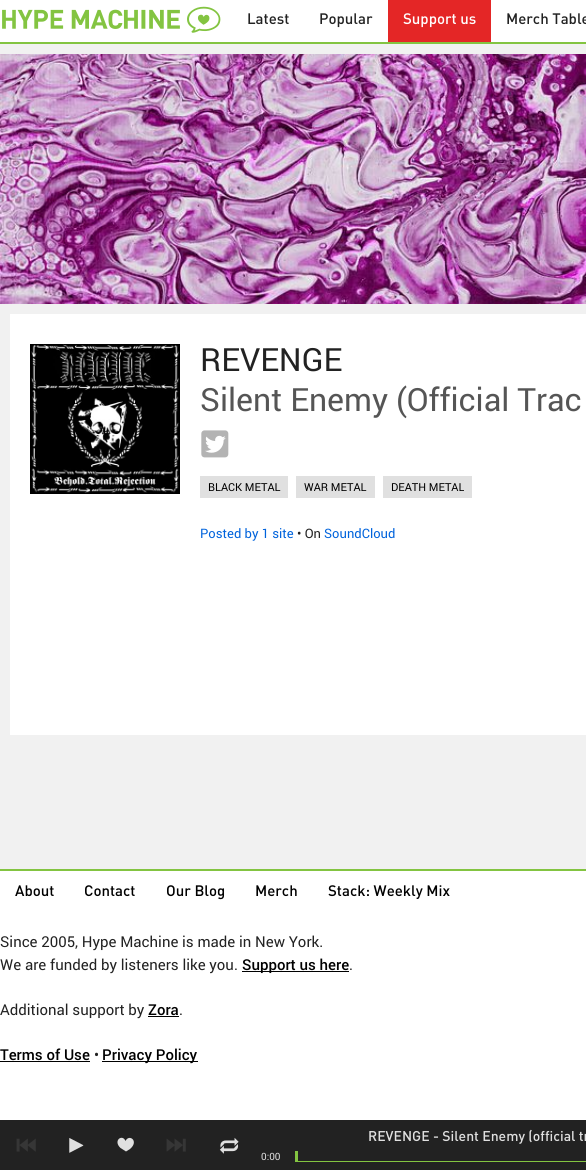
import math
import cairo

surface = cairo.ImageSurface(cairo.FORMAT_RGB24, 586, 1170)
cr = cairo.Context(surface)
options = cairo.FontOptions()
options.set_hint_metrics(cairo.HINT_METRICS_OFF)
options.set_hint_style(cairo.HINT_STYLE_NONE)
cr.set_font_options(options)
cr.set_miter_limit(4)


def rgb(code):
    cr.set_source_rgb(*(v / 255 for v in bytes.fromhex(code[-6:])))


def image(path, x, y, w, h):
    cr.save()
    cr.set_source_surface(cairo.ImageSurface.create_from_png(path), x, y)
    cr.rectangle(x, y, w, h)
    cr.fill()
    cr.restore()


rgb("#f1f1f1")
cr.paint()
for x, y, w, h, color in [
    (0, 0, 586, 42, "#ffffff"),
    (0, 42, 586, 2, "#83c441"),
    (388, 0, 103, 42, "#e42626"),
]:
    rgb(color)
    cr.rectangle(x, y, w, h)
    cr.fill()
image("img/1.png", 0, 54, 586, 250)
rgb("#ffffff")
cr.rectangle(10, 314, 576, 421)
cr.fill()
image("img/2.png", 30, 344, 150, 150)
image("img/3.png", 201, 430, 28, 28)
for x, y, w, h, color in [
    (200, 476, 88, 22, "#e0e0e0"),
    (296, 476, 79, 22, "#e0e0e0"),
    (383, 476, 89, 22, "#e0e0e0"),
    (0, 871, 586, 249, "#ffffff"),
    (0, 869, 586, 2, "#83c441"),
    (242, 971, 107, 1, "#000000"),
    (148, 1016, 31, 1, "#000000"),
    (0, 1061, 90, 1, "#000000"),
    (102, 1061, 96, 1, "#000000"),
    (0, 1120, 586, 50, "#222222"),
]:
    rgb(color)
    cr.rectangle(x, y, w, h)
    cr.fill()
image("img/4.png", 16, 1138, 20, 14)
image("img/5.png", 69, 1138, 15, 15)
rgb("#e0e0e0")
cr.new_path()
cr.move_to(125.5, 1141)
cr.curve_to(129, 1133.5, 139.5, 1141, 130, 1149)
cr.line_to(126, 1151.5)
cr.line_to(120.5, 1148)
cr.curve_to(112.5, 1140.5, 122.5, 1133.5, 125.5, 1141)
cr.close_path()
cr.fill()
image("img/6.png", 166, 1138, 20, 14)
image("img/7.png", 219, 1137, 20, 17)
rgb("#83c441")
cr.rectangle(295, 1161, 291, 1)
cr.fill()
cr.rectangle(295, 1151, 3, 10)
cr.fill()
cr.select_font_face("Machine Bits")
cr.set_font_size(38)
cr.move_to(0, 28)
cr.show_text("1")
cr.select_font_face("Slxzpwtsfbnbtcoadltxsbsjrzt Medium")
cr.set_font_size(15)
rgb("#222222")
cr.move_to(247, 24)
cr.show_text("Latest")
cr.move_to(319, 24)
cr.show_text("Popular")
rgb("#ffffff")
cr.move_to(403, 24)
cr.show_text("Support us")
rgb("#222222")
cr.move_to(506, 24)
cr.show_text("Merch Table")
cr.select_font_face("Roboto")
cr.set_font_size(32)
cr.move_to(200, 371)
cr.show_text("REVENGE")
rgb("#555555")
cr.move_to(200, 411)
cr.show_text("Silent Enemy (Official Trac")
cr.set_font_size(11)
rgb("#000000")
for x, y, s in [
    (208, 491, "BLACK METAL"),
    (304, 491, "WAR METAL"),
    (391, 491, "DEATH METAL"),
]:
    cr.move_to(x, y)
    cr.show_text(s)
cr.set_font_size(13)
rgb("#0063dc")
cr.move_to(200, 538)
cr.show_text("Posted by 1 site")
rgb("#222222")
cr.move_to(297, 538)
cr.show_text("• On")
rgb("#0063dc")
cr.move_to(324, 538)
cr.show_text("SoundCloud")
cr.select_font_face("Slxzpwtsfbnbtcoadltxsbsjrzt Medium")
cr.set_font_size(15)
rgb("#000000")
for x, y, s in [
    (15, 896, "About"),
    (84, 896, "Contact"),
    (166, 896, "Our Blog"),
    (255, 896, "Merch"),
    (328, 896, "Stack: Weekly Mix"),
]:
    cr.move_to(x, y)
    cr.show_text(s)
cr.select_font_face("Roboto")
rgb("#222222")
cr.move_to(0, 947)
cr.show_text("Since 2005, Hype Machine is made in New York.")
cr.move_to(0, 970)
cr.show_text("We are funded by listeners like you.")
cr.select_font_face("Roboto Medium")
rgb("#000000")
cr.move_to(242, 970)
cr.show_text("Support us here")
cr.select_font_face("Roboto")
rgb("#222222")
cr.move_to(349, 970)
cr.show_text(".")
cr.move_to(0, 1015)
cr.show_text("Additional support by")
cr.select_font_face("Roboto Medium")
rgb("#000000")
cr.move_to(148, 1015)
cr.show_text("Zora")
cr.select_font_face("Roboto")
rgb("#222222")
cr.move_to(179, 1015)
cr.show_text(".")
cr.select_font_face("Roboto Medium")
rgb("#000000")
cr.move_to(0, 1060)
cr.show_text("Terms of Use")
cr.select_font_face("Roboto")
rgb("#222222")
cr.move_to(94, 1060)
cr.show_text("•")
cr.select_font_face("Roboto Medium")
rgb("#000000")
cr.move_to(102, 1060)
cr.show_text("Privacy Policy")
cr.select_font_face("Slxzpwtsfbnbtcoadltxsbsjrzt Medium")
cr.set_font_size(14)
rgb("#e0e0e0")
cr.move_to(368, 1141)
cr.show_text("REVENGE - Silent Enemy (official tr")
cr.select_font_face("Roboto")
cr.set_font_size(10)
cr.move_to(261, 1160)
cr.show_text("0:00")
surface.write_to_png("page.png")
